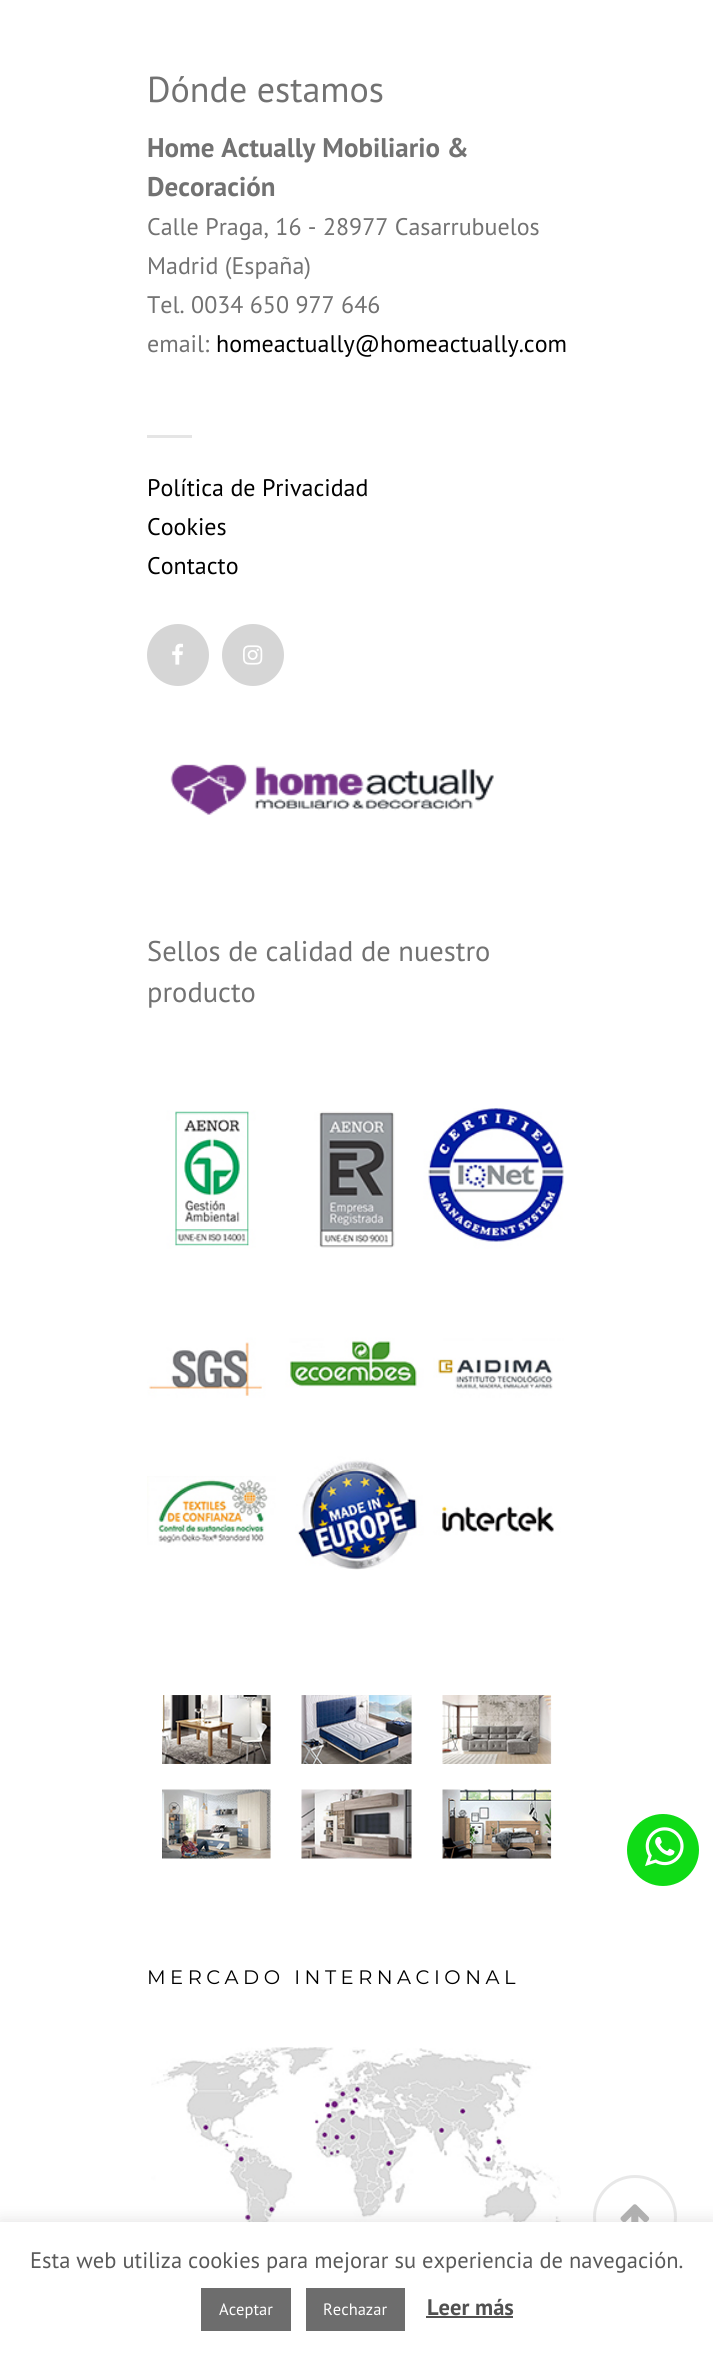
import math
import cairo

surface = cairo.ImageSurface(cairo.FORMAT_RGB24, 713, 2356)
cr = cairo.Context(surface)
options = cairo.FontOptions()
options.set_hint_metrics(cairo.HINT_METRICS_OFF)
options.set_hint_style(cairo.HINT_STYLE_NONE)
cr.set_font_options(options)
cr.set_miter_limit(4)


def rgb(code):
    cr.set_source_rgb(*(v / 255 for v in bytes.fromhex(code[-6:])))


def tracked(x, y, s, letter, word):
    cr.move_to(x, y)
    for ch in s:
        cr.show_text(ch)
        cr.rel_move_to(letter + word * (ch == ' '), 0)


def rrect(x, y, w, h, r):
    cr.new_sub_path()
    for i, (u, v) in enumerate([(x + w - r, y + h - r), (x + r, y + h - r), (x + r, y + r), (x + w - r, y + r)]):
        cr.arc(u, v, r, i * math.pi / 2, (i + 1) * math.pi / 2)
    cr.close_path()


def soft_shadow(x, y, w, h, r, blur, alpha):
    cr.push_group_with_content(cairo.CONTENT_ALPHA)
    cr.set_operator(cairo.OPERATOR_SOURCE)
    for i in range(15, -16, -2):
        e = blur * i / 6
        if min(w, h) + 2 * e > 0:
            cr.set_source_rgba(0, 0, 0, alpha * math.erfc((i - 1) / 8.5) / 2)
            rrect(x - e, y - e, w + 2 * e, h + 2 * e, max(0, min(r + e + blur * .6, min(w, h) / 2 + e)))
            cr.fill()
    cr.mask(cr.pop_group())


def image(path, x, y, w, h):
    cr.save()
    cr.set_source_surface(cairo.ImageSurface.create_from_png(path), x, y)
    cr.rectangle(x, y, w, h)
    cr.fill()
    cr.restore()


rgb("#ffffff")
cr.paint()
rgb("#e5e5e5")
cr.rectangle(147, 435, 45, 3)
cr.fill()
rgb("#d6d6d6")
cr.arc(178, 655, 31, 0, 2 * math.pi)
cr.fill()
image("img/1.png", 172, 643, 11, 22)
cr.arc(253, 655, 31, 0, 2 * math.pi)
cr.fill()
image("img/2.png", 243, 645, 20, 20)
image("img/3.png", 170, 764, 324, 51)
image("img/4.png", 147, 1108, 417, 462)
image("img/5.png", 162, 1695, 109, 69)
image("img/6.png", 301, 1695, 111, 69)
image("img/7.png", 442, 1695, 110, 69)
image("img/8.png", 162, 1789, 109, 70)
image("img/9.png", 301, 1789, 111, 70)
image("img/10.png", 442, 1789, 110, 70)
image("img/11.png", 151, 2047, 410, 175)
cr.arc(635, 2217, 40.5, 0, 2 * math.pi)
rgb("#e8e8e8")
cr.set_line_width(3)
cr.stroke()
image("img/12.png", 620, 2204, 30, 18)
rgb("#0fdb16")
cr.arc(663, 1850, 36, 0, 2 * math.pi)
cr.fill()
image("img/13.png", 645, 1827, 39, 40)
rgb("#acabab")
soft_shadow(0, 2220, 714, 135, 0, 7.5, 0.3)
for x, y, w, h, color in [
    (0, 2222, 713, 134, "#ffffff"),
    (201, 2288, 90, 43, "#6d6d6d"),
    (306, 2288, 99, 43, "#6d6d6d"),
    (426, 2316, 87, 2, "#515151"),
]:
    rgb(color)
    cr.rectangle(x, y, w, h)
    cr.fill()
cr.select_font_face("PT Sans")
cr.set_font_size(36)
rgb("#727272")
cr.move_to(147, 102)
cr.show_text("Dónde estamos")
cr.select_font_face("PT Sans", cairo.FONT_SLANT_NORMAL, cairo.FONT_WEIGHT_BOLD)
cr.set_font_size(27)
cr.move_to(147, 157)
cr.show_text("Home Actually Mobiliario &")
cr.move_to(147, 196)
cr.show_text("Decoración")
cr.select_font_face("PT Sans")
cr.set_font_size(24)
for x, y, s in [
    (147, 235, "Calle Praga, 16 - 28977 Casarrubuelos"),
    (147, 274, "Madrid (España)"),
    (147, 313, "Tel. 0034 650 977 646"),
    (147, 352, "email:"),
]:
    cr.move_to(x, y)
    cr.show_text(s)
rgb("#000000")
for x, y, s in [
    (216, 352, "homeactually@homeactually.com"),
    (147, 496, "Política de Privacidad"),
    (147, 535, "Cookies"),
    (147, 574, "Contacto"),
]:
    cr.move_to(x, y)
    cr.show_text(s)
cr.set_font_size(28.5)
rgb("#727272")
cr.move_to(147, 961)
cr.show_text("Sellos de calidad de nuestro")
cr.move_to(147, 1002)
cr.show_text("producto")
cr.select_font_face("Montserrat")
cr.set_font_size(19.5)
rgb("#000000")
tracked(147, 1984, "MERCADO INTERNACIONAL", 4.5, 0)
cr.select_font_face("PT Sans")
cr.set_font_size(22.5)
rgb("#595959")
cr.move_to(30, 2268)
cr.show_text("Esta web utiliza cookies para mejorar su experiencia de navegación.")
cr.set_font_size(16.5)
rgb("#ffffff")
cr.move_to(219, 2315)
cr.show_text("Aceptar")
cr.move_to(323, 2315)
cr.show_text("Rechazar")
cr.select_font_face("PT Sans", cairo.FONT_SLANT_NORMAL, cairo.FONT_WEIGHT_BOLD)
cr.set_font_size(22.5)
rgb("#515151")
cr.move_to(427, 2315)
cr.show_text("Leer más")
surface.write_to_png("page.png")
